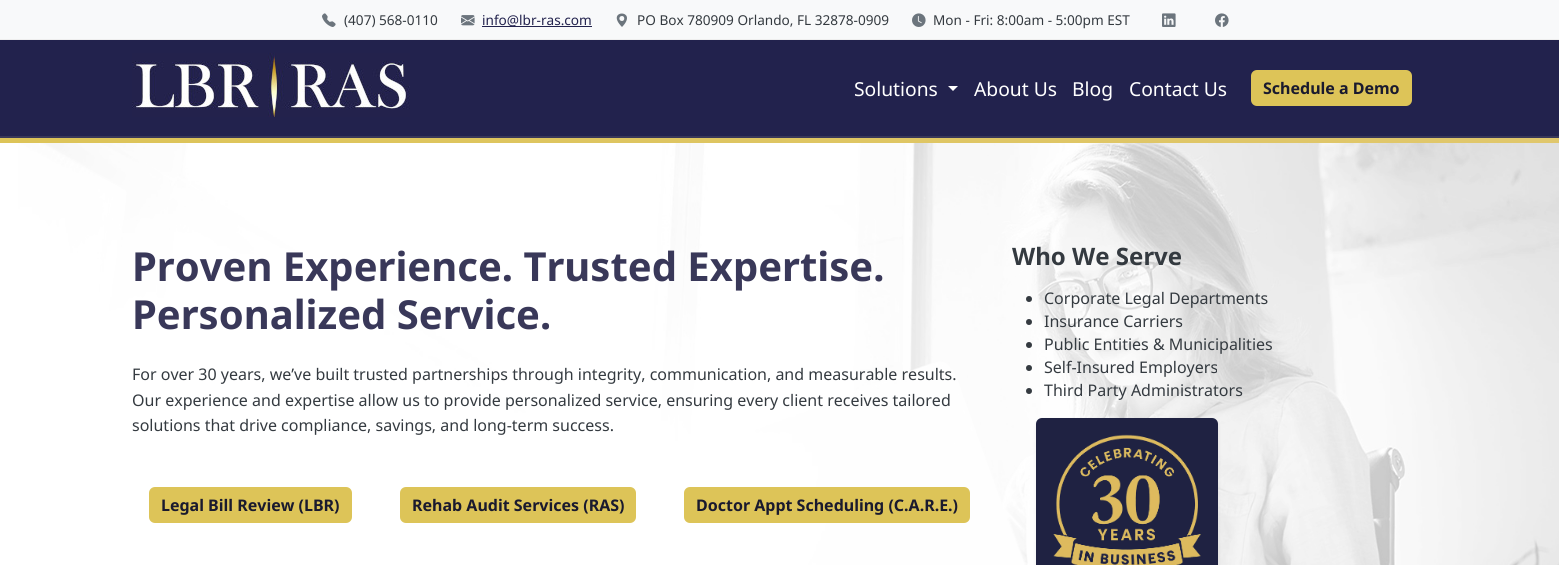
import math
import cairo

surface = cairo.ImageSurface(cairo.FORMAT_RGB24, 1559, 565)
cr = cairo.Context(surface)
options = cairo.FontOptions()
options.set_hint_metrics(cairo.HINT_METRICS_OFF)
options.set_hint_style(cairo.HINT_STYLE_NONE)
cr.set_font_options(options)
cr.set_miter_limit(4)


def rgb(code):
    cr.set_source_rgb(*(v / 255 for v in bytes.fromhex(code[-6:])))


def rrect(x, y, w, h, r):
    cr.new_sub_path()
    for i, (u, v) in enumerate([(x + w - r, y + h - r), (x + r, y + h - r), (x + r, y + r), (x + w - r, y + r)]):
        cr.arc(u, v, r, i * math.pi / 2, (i + 1) * math.pi / 2)
    cr.close_path()


def soft_shadow(x, y, w, h, r, blur, alpha):
    cr.push_group_with_content(cairo.CONTENT_ALPHA)
    cr.set_operator(cairo.OPERATOR_SOURCE)
    for i in range(15, -16, -2):
        e = blur * i / 6
        if min(w, h) + 2 * e > 0:
            cr.set_source_rgba(0, 0, 0, alpha * math.erfc((i - 1) / 8.5) / 2)
            rrect(x - e, y - e, w + 2 * e, h + 2 * e, max(0, min(r + e + blur * .6, min(w, h) / 2 + e)))
            cr.fill()
    cr.mask(cr.pop_group())


def image(path, x, y, w, h):
    cr.save()
    cr.set_source_surface(cairo.ImageSurface.create_from_png(path), x, y)
    cr.rectangle(x, y, w, h)
    cr.fill()
    cr.restore()


rgb("#ffffff")
cr.paint()
rgb("#f8f9fa")
cr.rectangle(0, 0, 1559, 39)
cr.fill()
rgb("#eeeeee")
cr.rectangle(0, 39, 1559, 1)
cr.fill()
image("img/1.png", 322, 13, 14, 14)
image("img/2.png", 461, 15, 14, 11)
rgb("#22224d")
cr.rectangle(482, 26, 110, 1)
cr.fill()
rgb("#6c757d")
cr.new_path()
cr.move_to(622, 27)
cr.curve_to(639.5, 9, 604, 9, 622, 27)
cr.close_path()
cr.move_to(622, 21)
cr.curve_to(618.5, 21, 618.5, 16, 622, 16)
cr.curve_to(625, 16, 625, 21, 622, 21)
cr.close_path()
cr.fill()
image("img/3.png", 912, 13, 14, 14)
image("img/4.png", 1162, 13, 14, 14)
image("img/5.png", 1215, 13, 14, 14)
rgb("#22224d")
cr.rectangle(0, 40, 1559, 96)
cr.fill()
rgb("#393859")
cr.rectangle(0, 136, 1559, 2)
cr.fill()
image("img/6.png", 132, 53, 278, 64)
rgb("#ffffff")
cr.new_path()
cr.move_to(948, 86)
cr.line_to(958, 86)
cr.line_to(953, 91)
cr.close_path()
cr.fill()
rgb("#ddc458")
rrect(1251, 70, 161, 36, 6)
cr.fill()
gradient = cairo.LinearGradient(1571, 141, -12, 140)
gradient.add_color_stop_rgba(0, 0.878, 0.78, 0.424, 1)
gradient.add_color_stop_rgba(1, 0.867, 0.769, 0.345, 1)
cr.set_source(gradient)
cr.rectangle(0, 138, 1559, 5)
cr.fill()
image("img/7.png", 18, 143, 1541, 422)
rgb("#ddc458")
rrect(149, 487, 203, 36, 6)
cr.fill()
rrect(400, 487, 236, 36, 6)
cr.fill()
rrect(684, 487, 286, 36, 6)
cr.fill()
rgb("#343a40")
cr.arc(1029, 299, 3, 0, 2 * math.pi)
cr.fill()
cr.arc(1029, 322, 3, 0, 2 * math.pi)
cr.fill()
cr.arc(1029, 345, 3, 0, 2 * math.pi)
cr.fill()
cr.arc(1029, 368, 3, 0, 2 * math.pi)
cr.fill()
cr.arc(1029, 391, 3, 0, 2 * math.pi)
cr.fill()
rgb("#000000")
soft_shadow(1036, 420, 182, 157, 6, 2, 0.07)
rgb("#1f2242")
rrect(1036, 418, 182, 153, 6)
cr.fill()
image("img/8.png", 1053, 434, 148, 131)
cr.select_font_face("Noto Sans")
cr.set_font_size(13.6)
rgb("#343a40")
cr.move_to(344, 25)
cr.show_text("(407) 568-0110")
rgb("#22224d")
cr.move_to(482, 25)
cr.show_text("info@lbr-ras.com")
rgb("#343a40")
cr.move_to(637, 25)
cr.show_text("PO Box 780909 Orlando, FL 32878-0909")
cr.move_to(933, 25)
cr.show_text("Mon - Fri: 8:00am - 5:00pm EST")
cr.set_font_size(19.25)
rgb("#ffffff")
for x, y, s in [
    (854, 96, "Solutions"),
    (974, 96, "About Us"),
    (1072, 96, "Blog"),
    (1129, 96, "Contact Us"),
]:
    cr.move_to(x, y)
    cr.show_text(s)
cr.select_font_face("Noto Sans", cairo.FONT_SLANT_NORMAL, cairo.FONT_WEIGHT_BOLD)
cr.set_font_size(16)
rgb("#1a1a2e")
cr.move_to(1263, 94)
cr.show_text("Schedule a Demo")
cr.set_font_size(40)
rgb("#393859")
cr.move_to(132, 281)
cr.show_text("Proven Experience. Trusted Expertise.")
cr.move_to(132, 329)
cr.show_text("Personalized Service.")
cr.select_font_face("Noto Sans")
cr.set_font_size(16)
rgb("#343a40")
for x, y, s in [
    (132, 380, "For over 30 years, we’ve built trusted partnerships through integrity, communication, and measurable results."),
    (132, 406, "Our experience and expertise allow us to provide personalized service, ensuring every client receives tailored"),
    (132, 431, "solutions that drive compliance, savings, and long-term success."),
]:
    cr.move_to(x, y)
    cr.show_text(s)
cr.select_font_face("Noto Sans", cairo.FONT_SLANT_NORMAL, cairo.FONT_WEIGHT_BOLD)
rgb("#1a1a2e")
for x, y, s in [
    (161, 511, "Legal Bill Review (LBR)"),
    (412, 511, "Rehab Audit Services (RAS)"),
    (696, 511, "Doctor Appt Scheduling (C.A.R.E.)"),
]:
    cr.move_to(x, y)
    cr.show_text(s)
cr.set_font_size(24)
rgb("#343a40")
cr.move_to(1012, 265)
cr.show_text("Who We Serve")
cr.select_font_face("Noto Sans")
cr.set_font_size(16)
for x, y, s in [
    (1044, 304, "Corporate Legal Departments"),
    (1044, 327, "Insurance Carriers"),
    (1044, 350, "Public Entities & Municipalities"),
    (1044, 373, "Self-Insured Employers"),
    (1044, 396, "Third Party Administrators"),
]:
    cr.move_to(x, y)
    cr.show_text(s)
surface.write_to_png("page.png")
